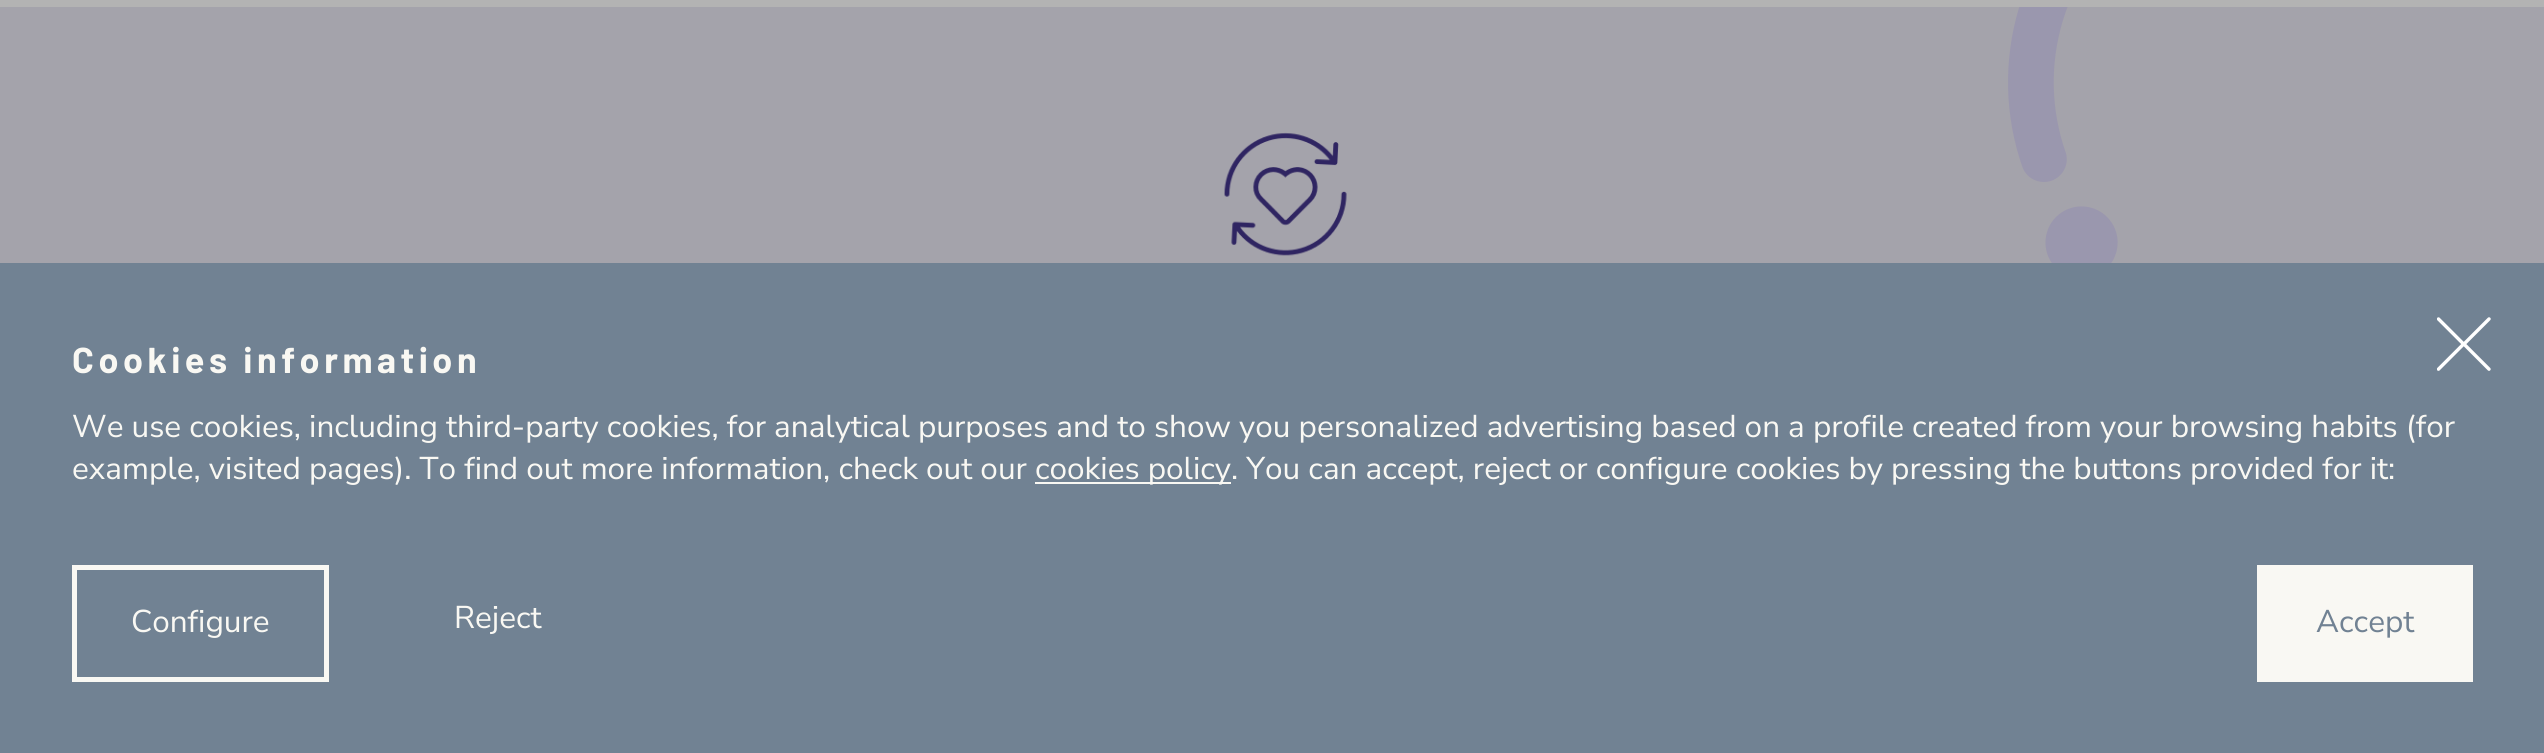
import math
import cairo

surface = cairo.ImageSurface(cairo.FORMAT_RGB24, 2544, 753)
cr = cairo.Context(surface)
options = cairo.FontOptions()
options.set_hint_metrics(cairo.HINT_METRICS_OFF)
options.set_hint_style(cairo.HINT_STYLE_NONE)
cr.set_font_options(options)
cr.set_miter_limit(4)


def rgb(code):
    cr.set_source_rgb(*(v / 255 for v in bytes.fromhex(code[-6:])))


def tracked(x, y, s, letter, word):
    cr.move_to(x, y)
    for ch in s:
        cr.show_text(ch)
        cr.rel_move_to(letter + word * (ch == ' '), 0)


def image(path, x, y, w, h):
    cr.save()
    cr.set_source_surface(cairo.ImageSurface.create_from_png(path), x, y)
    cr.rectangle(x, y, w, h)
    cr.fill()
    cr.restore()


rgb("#ffffff")
cr.paint()
rgb("#eae8f3")
cr.rectangle(0, 7, 2544, 256)
cr.fill()
image("img/1.png", 2008, 7, 110, 256)
image("img/2.png", 1224, 132, 123, 124)
rgb("#718293")
cr.rectangle(0, 263, 2544, 490)
cr.fill()
cr.set_source_rgba(0, 0, 0, 0.3)
cr.rectangle(0, 0, 2544, 263)
cr.fill()
rgb("#f9f8f3")
cr.rectangle(1035, 482, 196, 2)
cr.fill()
image("img/3.png", 2437, 317, 54, 54)
cr.rectangle(74.5, 567.5, 252, 112)
cr.set_line_width(5)
cr.stroke()
cr.rectangle(2257, 565, 216, 117)
cr.fill()
cr.select_font_face("Barlow", cairo.FONT_SLANT_NORMAL, cairo.FONT_WEIGHT_BOLD)
cr.set_font_size(36)
tracked(72, 373, "Cookies information", 4.5, 0)
cr.select_font_face("Nunito Sans")
cr.set_font_size(31.5)
for x, y, s in [
    (72, 437, "We use cookies, including third-party cookies, for analytical purposes and to show you personalized advertising based on a profile created from your browsing habits (for"),
    (72, 479, "example, visited pages). To find out more information, check out our"),
    (1035, 479, "cookies policy. You can accept, reject or configure cookies by pressing the buttons provided for it:"),
    (131, 632, "Configure"),
    (454, 628, "Reject"),
]:
    cr.move_to(x, y)
    cr.show_text(s)
rgb("#718293")
cr.move_to(2316, 632)
cr.show_text("Accept")
surface.write_to_png("page.png")
